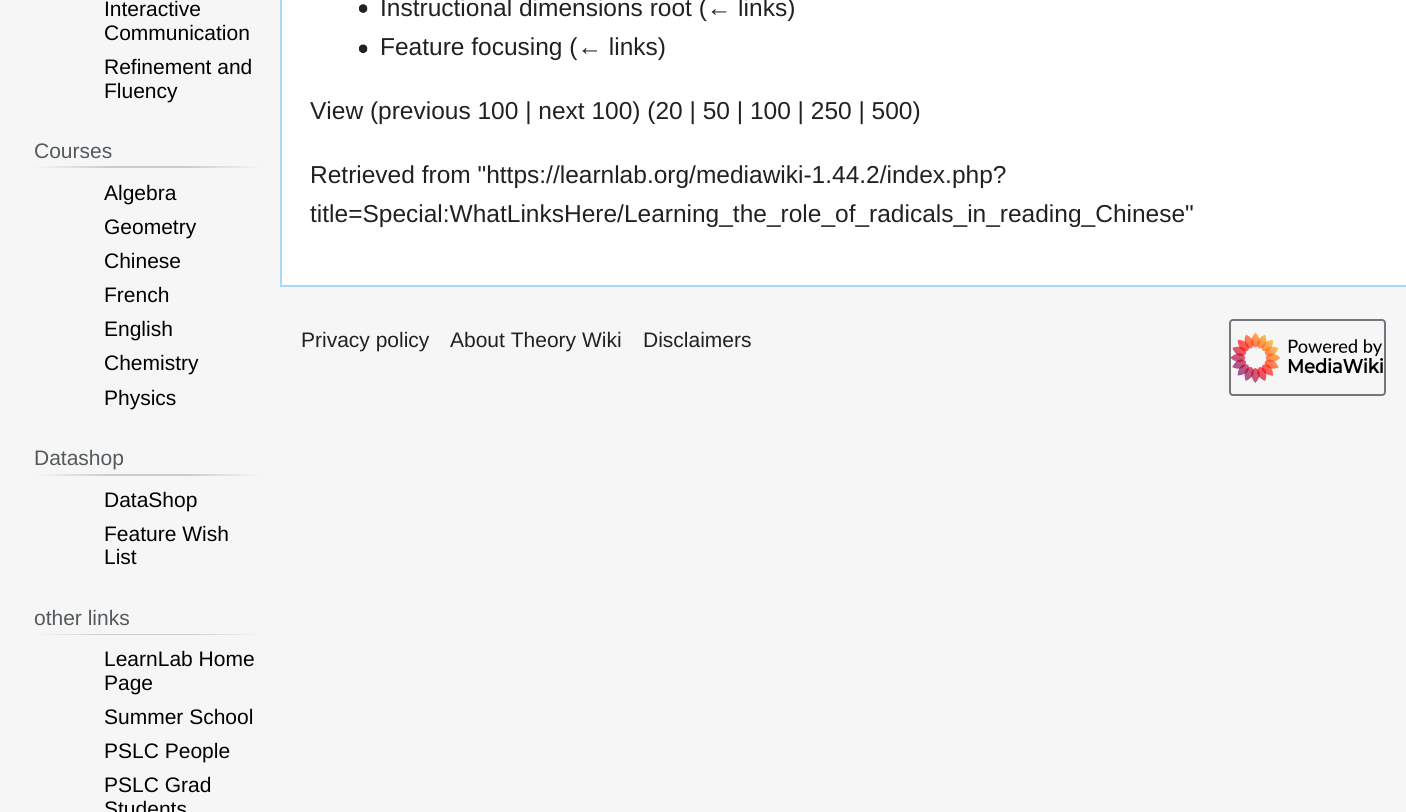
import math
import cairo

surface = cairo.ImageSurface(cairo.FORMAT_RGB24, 1406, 812)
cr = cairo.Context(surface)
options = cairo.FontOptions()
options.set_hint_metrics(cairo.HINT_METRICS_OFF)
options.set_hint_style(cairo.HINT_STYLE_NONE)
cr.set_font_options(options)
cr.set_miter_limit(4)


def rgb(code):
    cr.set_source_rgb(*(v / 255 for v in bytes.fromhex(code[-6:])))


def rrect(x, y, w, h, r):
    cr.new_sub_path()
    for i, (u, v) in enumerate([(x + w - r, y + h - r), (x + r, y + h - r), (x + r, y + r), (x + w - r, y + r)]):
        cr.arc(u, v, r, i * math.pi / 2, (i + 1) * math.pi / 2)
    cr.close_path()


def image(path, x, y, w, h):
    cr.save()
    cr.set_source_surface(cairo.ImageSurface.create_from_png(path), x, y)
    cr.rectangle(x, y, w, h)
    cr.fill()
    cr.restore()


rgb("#f6f6f6")
cr.paint()
gradient = cairo.LinearGradient(33, 167, 263, 167)
gradient.add_color_stop_rgba(0, 0.965, 0.965, 0.965, 1)
gradient.add_color_stop_rgba(0.33, 0.784, 0.8, 0.82, 1)
gradient.add_color_stop_rgba(0.66, 0.784, 0.8, 0.82, 1)
gradient.add_color_stop_rgba(1, 0.965, 0.965, 0.965, 1)
cr.set_source(gradient)
cr.rectangle(33, 166, 230, 2)
cr.fill()
gradient = cairo.LinearGradient(33, 475, 263, 475)
gradient.add_color_stop_rgba(0, 0.965, 0.965, 0.965, 1)
gradient.add_color_stop_rgba(0.33, 0.784, 0.8, 0.82, 1)
gradient.add_color_stop_rgba(0.66, 0.784, 0.8, 0.82, 1)
gradient.add_color_stop_rgba(1, 0.965, 0.965, 0.965, 1)
cr.set_source(gradient)
cr.rectangle(33, 474, 230, 2)
cr.fill()
gradient = cairo.LinearGradient(33, 634, 263, 634)
gradient.add_color_stop_rgba(0, 0.965, 0.965, 0.965, 1)
gradient.add_color_stop_rgba(0.33, 0.784, 0.8, 0.82, 1)
gradient.add_color_stop_rgba(0.66, 0.784, 0.8, 0.82, 1)
gradient.add_color_stop_rgba(1, 0.965, 0.965, 0.965, 1)
cr.set_source(gradient)
cr.rectangle(33, 634, 230, 1)
cr.fill()
for x, y, w, h, color in [
    (282, 0, 1124, 285, "#ffffff"),
    (280, 285, 1126, 2, "#a7d7f9"),
    (280, 0, 2, 287, "#a7d7f9"),
]:
    rgb(color)
    cr.rectangle(x, y, w, h)
    cr.fill()
image("img/1.png", 359, 4, 9, 9)
image("img/2.png", 359, 44, 9, 10)
rrect(1230, 320, 155, 75, 3)
rgb("#72777d")
cr.stroke()
image("img/3.png", 1230, 332, 153, 51)
cr.select_font_face("Liberation Sans")
cr.set_font_size(21)
rgb("#000000")
for x, y, s in [
    (104, 16, "Interactive"),
    (104, 40, "Communication"),
    (104, 74, "Refinement and"),
    (104, 98, "Fluency"),
]:
    cr.move_to(x, y)
    cr.show_text(s)
rgb("#54595d")
cr.move_to(34, 158)
cr.show_text("Courses")
rgb("#000000")
for x, y, s in [
    (104, 200, "Algebra"),
    (104, 234, "Geometry"),
    (104, 268, "Chinese"),
    (104, 302, "French"),
    (104, 336, "English"),
    (104, 370, "Chemistry"),
    (104, 405, "Physics"),
]:
    cr.move_to(x, y)
    cr.show_text(s)
rgb("#54595d")
cr.move_to(34, 465)
cr.show_text("Datashop")
rgb("#000000")
for x, y, s in [
    (104, 507, "DataShop"),
    (104, 541, "Feature Wish"),
    (104, 564, "List"),
]:
    cr.move_to(x, y)
    cr.show_text(s)
rgb("#54595d")
cr.move_to(34, 625)
cr.show_text("other links")
rgb("#000000")
for x, y, s in [
    (104, 666, "LearnLab Home"),
    (104, 690, "Page"),
    (104, 724, "Summer School"),
    (104, 758, "PSLC People"),
    (104, 792, "PSLC Grad"),
    (104, 816, "Students"),
]:
    cr.move_to(x, y)
    cr.show_text(s)
cr.set_font_size(24.5)
rgb("#202122")
for x, y, s in [
    (380, 16, "Instructional dimensions root (← links)"),
    (380, 55, "Feature focusing (← links)"),
    (310, 119, "View (previous 100 | next 100) (20 | 50 | 100 | 250 | 500)"),
    (310, 183, "Retrieved from \"https://learnlab.org/mediawiki-1.44.2/index.php?"),
    (310, 222, "title=Special:WhatLinksHere/Learning_the_role_of_radicals_in_reading_Chinese\""),
]:
    cr.move_to(x, y)
    cr.show_text(s)
cr.set_font_size(21)
for x, y, s in [
    (301, 347, "Privacy policy"),
    (450, 347, "About Theory Wiki"),
    (643, 347, "Disclaimers"),
]:
    cr.move_to(x, y)
    cr.show_text(s)
surface.write_to_png("page.png")
